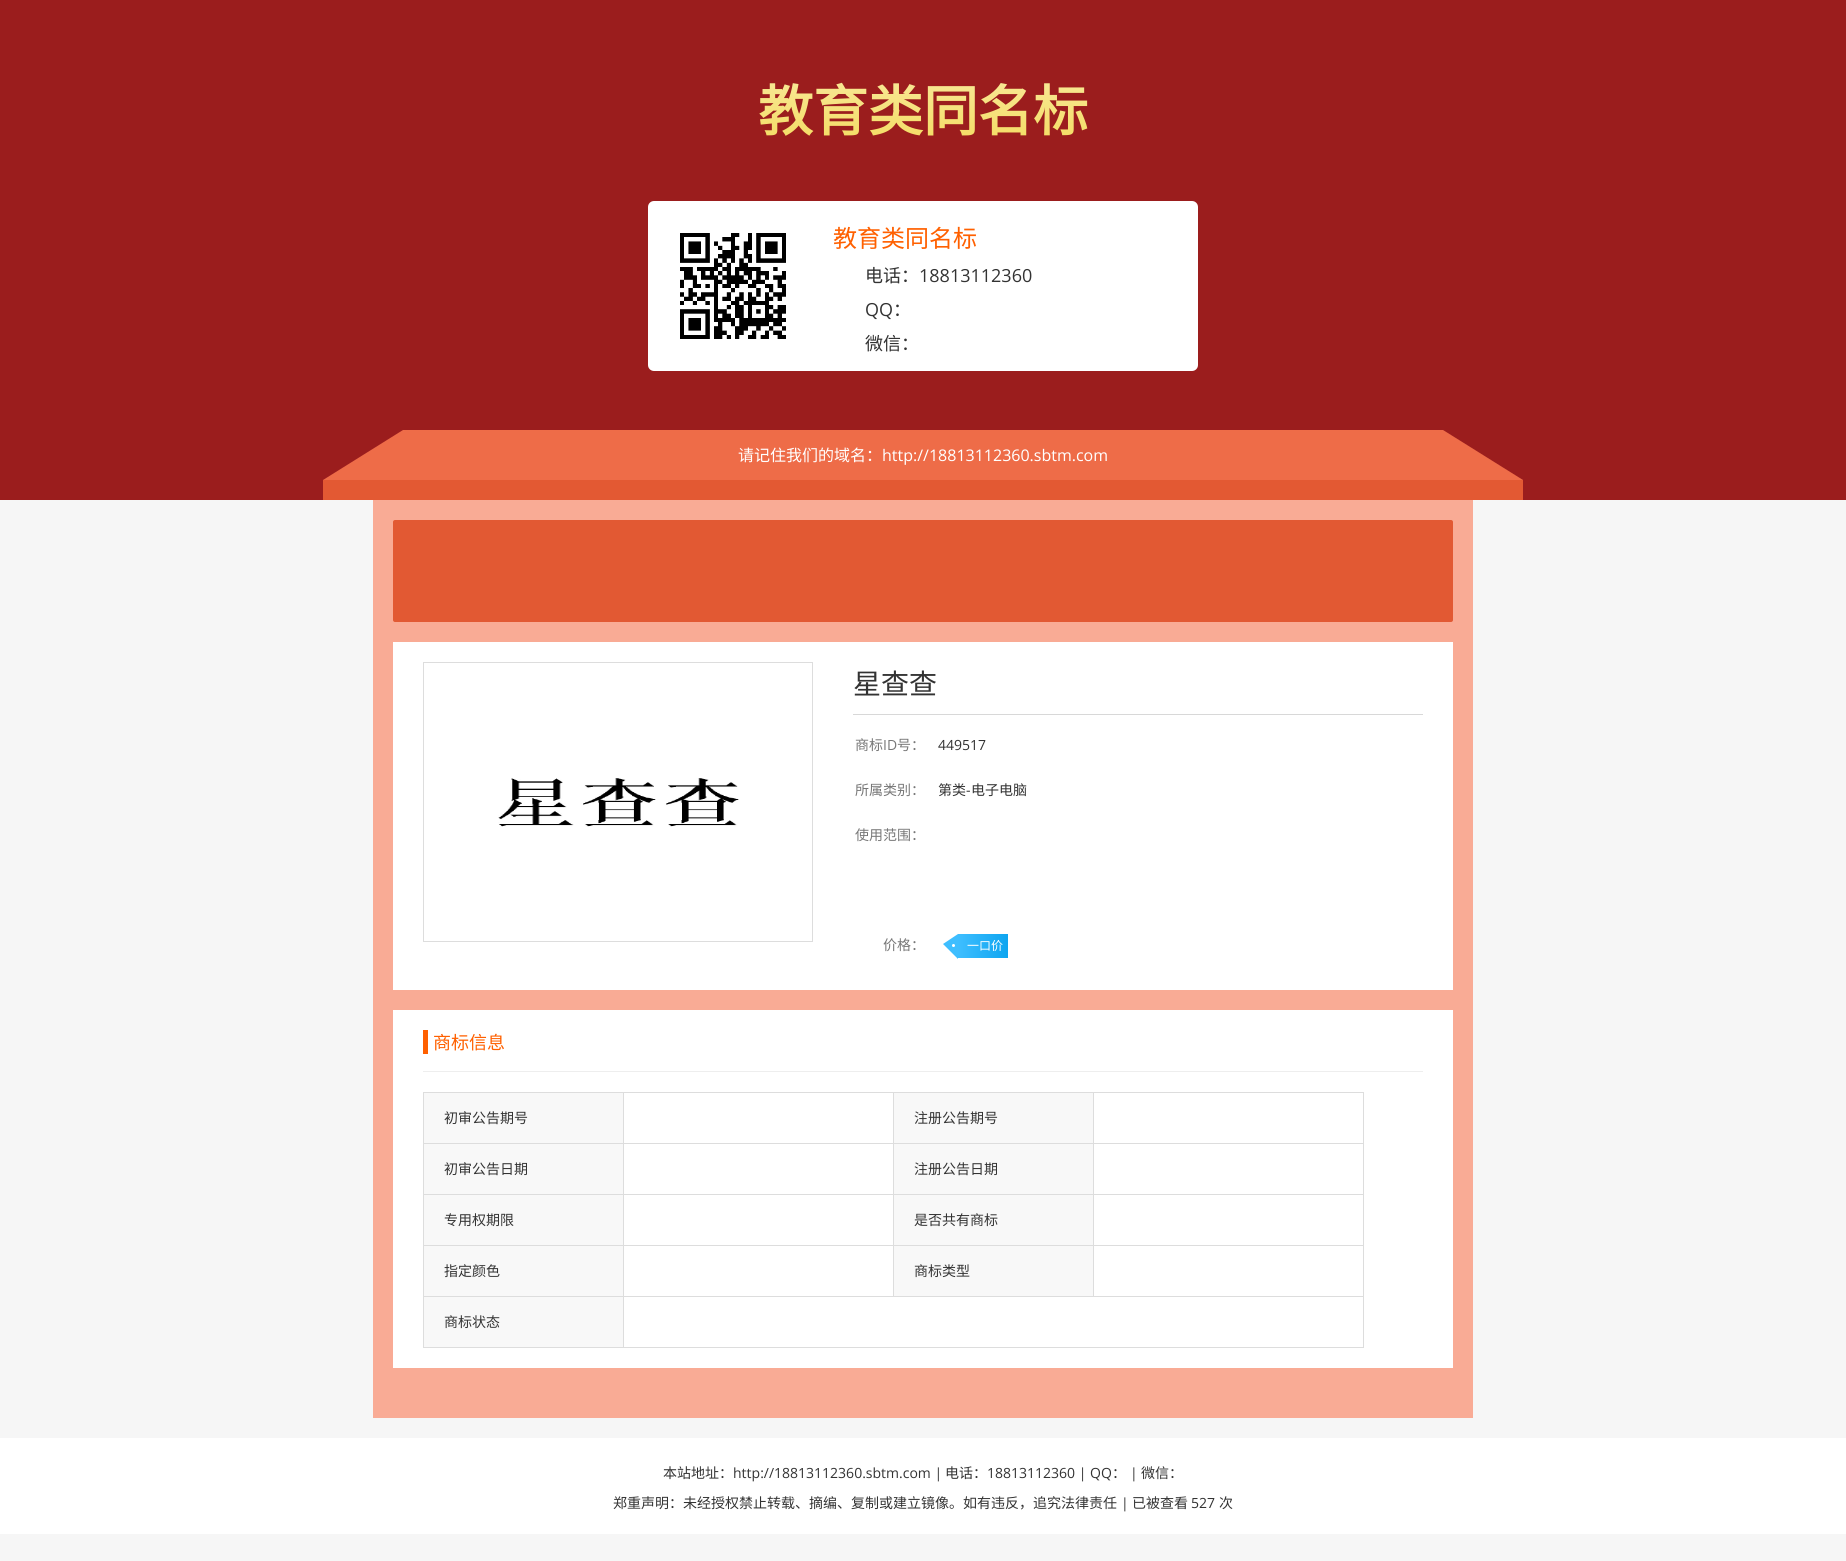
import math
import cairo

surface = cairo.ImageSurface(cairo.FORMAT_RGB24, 1846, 1561)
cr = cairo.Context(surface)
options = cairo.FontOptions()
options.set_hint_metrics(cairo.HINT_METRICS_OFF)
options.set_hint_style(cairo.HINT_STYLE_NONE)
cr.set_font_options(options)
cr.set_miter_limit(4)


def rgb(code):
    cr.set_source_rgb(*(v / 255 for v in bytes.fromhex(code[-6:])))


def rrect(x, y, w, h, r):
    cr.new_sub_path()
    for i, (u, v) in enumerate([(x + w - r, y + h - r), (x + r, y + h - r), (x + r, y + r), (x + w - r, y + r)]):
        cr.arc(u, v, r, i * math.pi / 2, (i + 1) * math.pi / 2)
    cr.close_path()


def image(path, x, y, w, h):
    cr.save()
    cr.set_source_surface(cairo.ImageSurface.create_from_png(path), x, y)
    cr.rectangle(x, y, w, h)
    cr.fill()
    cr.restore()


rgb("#f6f6f6")
cr.paint()
rgb("#9b1d1d")
cr.rectangle(0, 0, 1846, 500)
cr.fill()
rgb("#ffffff")
rrect(648, 201, 550, 170, 6)
cr.fill()
image("img/1.png", 680, 233, 106, 106)
rgb("#ee6c48")
cr.new_path()
cr.move_to(1523, 480)
cr.line_to(323, 480)
cr.line_to(403, 430)
cr.line_to(1443, 430)
cr.close_path()
cr.fill()
rgb("#e35933")
cr.rectangle(323, 480, 1200, 20)
cr.fill()
rgb("#f9ab95")
cr.rectangle(373, 500, 1100, 918)
cr.fill()
rgb("#e25933")
rrect(393, 520, 1060, 102, 2)
cr.fill()
rgb("#ffffff")
cr.rectangle(393, 642, 1060, 348)
cr.fill()
cr.rectangle(423.5, 662.5, 389, 279)
rgb("#dddddd")
cr.set_line_width(1)
cr.stroke()
image("img/2.png", 498, 778, 241, 49)
rgb("#d8d8d8")
cr.rectangle(853, 714, 570, 1)
cr.fill()
rgb("#3ebeff")
cr.new_path()
cr.move_to(958, 934)
cr.line_to(958, 959)
cr.line_to(943, 944)
cr.close_path()
cr.fill()
gradient = cairo.LinearGradient(958, 946, 1008, 946)
gradient.add_color_stop_rgba(0, 0.243, 0.745, 1, 1)
gradient.add_color_stop_rgba(1, 0.055, 0.647, 0.941, 1)
cr.set_source(gradient)
cr.rectangle(958, 934, 50, 24)
cr.fill()
rgb("#ffffff")
cr.arc(953.5, 945.5, 1.5, 0, 2 * math.pi)
cr.fill()
for x, y, w, h, color in [
    (393, 1010, 1060, 358, "#ffffff"),
    (423, 1071, 1000, 1, "#eeeeee"),
    (423, 1030, 5, 24, "#ff6000"),
    (423, 1092, 941, 1, "#dddddd"),
    (423, 1092, 1, 256, "#dddddd"),
    (424, 1093, 199, 50, "#f8f8f8"),
    (1363, 1092, 1, 256, "#dddddd"),
    (1093, 1296, 271, 1, "#dddddd"),
    (1093, 1245, 1, 52, "#dddddd"),
    (1093, 1245, 271, 1, "#dddddd"),
    (1093, 1194, 1, 52, "#dddddd"),
    (1093, 1194, 271, 1, "#dddddd"),
    (1093, 1143, 1, 52, "#dddddd"),
    (1093, 1143, 271, 1, "#dddddd"),
    (1093, 1092, 1, 52, "#dddddd"),
    (893, 1296, 201, 1, "#dddddd"),
    (893, 1245, 1, 52, "#dddddd"),
    (893, 1245, 201, 1, "#dddddd"),
    (893, 1194, 1, 52, "#dddddd"),
    (893, 1194, 201, 1, "#dddddd"),
    (893, 1143, 1, 52, "#dddddd"),
    (893, 1143, 201, 1, "#dddddd"),
    (893, 1092, 1, 52, "#dddddd"),
    (623, 1347, 741, 1, "#dddddd"),
    (623, 1296, 1, 52, "#dddddd"),
    (623, 1296, 271, 1, "#dddddd"),
    (623, 1245, 1, 52, "#dddddd"),
    (623, 1245, 271, 1, "#dddddd"),
    (623, 1194, 1, 52, "#dddddd"),
    (623, 1194, 271, 1, "#dddddd"),
    (623, 1143, 1, 52, "#dddddd"),
    (623, 1143, 271, 1, "#dddddd"),
    (623, 1092, 1, 52, "#dddddd"),
    (423, 1143, 201, 1, "#dddddd"),
    (894, 1093, 199, 50, "#f8f8f8"),
    (424, 1144, 199, 50, "#f8f8f8"),
    (423, 1194, 201, 1, "#dddddd"),
    (894, 1144, 199, 50, "#f8f8f8"),
    (424, 1195, 199, 50, "#f8f8f8"),
    (423, 1245, 201, 1, "#dddddd"),
    (894, 1195, 199, 50, "#f8f8f8"),
    (424, 1246, 199, 50, "#f8f8f8"),
    (423, 1296, 201, 1, "#dddddd"),
    (894, 1246, 199, 50, "#f8f8f8"),
    (424, 1297, 199, 50, "#f8f8f8"),
    (423, 1347, 201, 1, "#dddddd"),
    (0, 1438, 1846, 96, "#ffffff"),
]:
    rgb(color)
    cr.rectangle(x, y, w, h)
    cr.fill()
cr.select_font_face("Noto Sans CJK SC", cairo.FONT_SLANT_NORMAL, cairo.FONT_WEIGHT_BOLD)
cr.set_font_size(55)
gradient = cairo.LinearGradient(0, 0, 0, 141)
gradient.add_color_stop_rgba(0, 0.992, 0.965, 0.82, 1)
gradient.add_color_stop_rgba(1, 0.957, 0.863, 0.396, 1)
cr.set_source(gradient)
cr.move_to(758, 131)
cr.show_text("教育类同名标")
cr.select_font_face("Noto Sans CJK SC")
cr.set_font_size(24)
rgb("#ff6000")
cr.move_to(833, 247)
cr.show_text("教育类同名标")
cr.set_font_size(18)
rgb("#333333")
cr.move_to(865, 282)
cr.show_text("电话：")
cr.select_font_face("Open Sans")
cr.move_to(919, 282)
cr.show_text("18813112360")
cr.move_to(865, 316)
cr.show_text("QQ")
cr.select_font_face("Noto Sans CJK SC")
cr.move_to(893, 316)
cr.show_text("：")
cr.move_to(865, 350)
cr.show_text("微信：")
cr.set_font_size(16)
rgb("#ffffff")
cr.move_to(738, 461)
cr.show_text("请记住我们的域名：")
cr.select_font_face("Open Sans")
cr.move_to(882, 461)
cr.show_text("http://18813112360.sbtm.com")
cr.select_font_face("Noto Sans CJK SC")
cr.set_font_size(28)
rgb("#333333")
cr.move_to(853, 694)
cr.show_text("星查查")
cr.set_font_size(14)
rgb("#777777")
cr.move_to(855, 750)
cr.show_text("商标")
cr.select_font_face("Open Sans")
cr.move_to(883, 750)
cr.show_text("ID")
cr.select_font_face("Noto Sans CJK SC")
cr.move_to(897, 750)
cr.show_text("号：")
cr.select_font_face("Open Sans")
rgb("#333333")
cr.move_to(938, 750)
cr.show_text("449517")
cr.select_font_face("Noto Sans CJK SC")
rgb("#777777")
cr.move_to(855, 795)
cr.show_text("所属类别：")
rgb("#333333")
cr.move_to(938, 795)
cr.show_text("第类")
cr.select_font_face("Open Sans")
cr.move_to(966, 795)
cr.show_text("-")
cr.select_font_face("Noto Sans CJK SC")
cr.move_to(971, 795)
cr.show_text("电子电脑")
rgb("#777777")
cr.move_to(855, 840)
cr.show_text("使用范围：")
cr.move_to(883, 950)
cr.show_text("价格：")
cr.set_font_size(12)
rgb("#ffffff")
cr.move_to(967, 950)
cr.show_text("一口价")
cr.set_font_size(18)
rgb("#ff6000")
cr.move_to(433, 1049)
cr.show_text("商标信息")
cr.set_font_size(14)
rgb("#333333")
for x, y, s in [
    (444, 1123, "初审公告期号"),
    (914, 1123, "注册公告期号"),
    (444, 1174, "初审公告日期"),
    (914, 1174, "注册公告日期"),
    (444, 1225, "专用权期限"),
    (914, 1225, "是否共有商标"),
    (444, 1276, "指定颜色"),
    (914, 1276, "商标类型"),
    (444, 1327, "商标状态"),
    (663, 1478, "本站地址："),
]:
    cr.move_to(x, y)
    cr.show_text(s)
cr.select_font_face("Open Sans")
cr.move_to(733, 1478)
cr.show_text("http://18813112360.sbtm.com |")
cr.select_font_face("Noto Sans CJK SC")
cr.move_to(945, 1478)
cr.show_text("电话：")
cr.select_font_face("Open Sans")
cr.move_to(987, 1478)
cr.show_text("18813112360 | QQ")
cr.select_font_face("Noto Sans CJK SC")
cr.move_to(1112, 1478)
cr.show_text("：")
cr.select_font_face("Open Sans")
cr.move_to(1130, 1478)
cr.show_text("|")
cr.select_font_face("Noto Sans CJK SC")
cr.move_to(1141, 1478)
cr.show_text("微信：")
cr.move_to(613, 1508)
cr.show_text("郑重声明：未经授权禁止转载、摘编、复制或建立镜像。如有违反，追究法律责任")
cr.select_font_face("Open Sans")
cr.move_to(1121, 1508)
cr.show_text("|")
cr.select_font_face("Noto Sans CJK SC")
cr.move_to(1132, 1508)
cr.show_text("已被查看")
cr.select_font_face("Open Sans")
cr.move_to(1191, 1508)
cr.show_text("527")
cr.select_font_face("Noto Sans CJK SC")
cr.move_to(1219, 1508)
cr.show_text("次")
surface.write_to_png("page.png")
